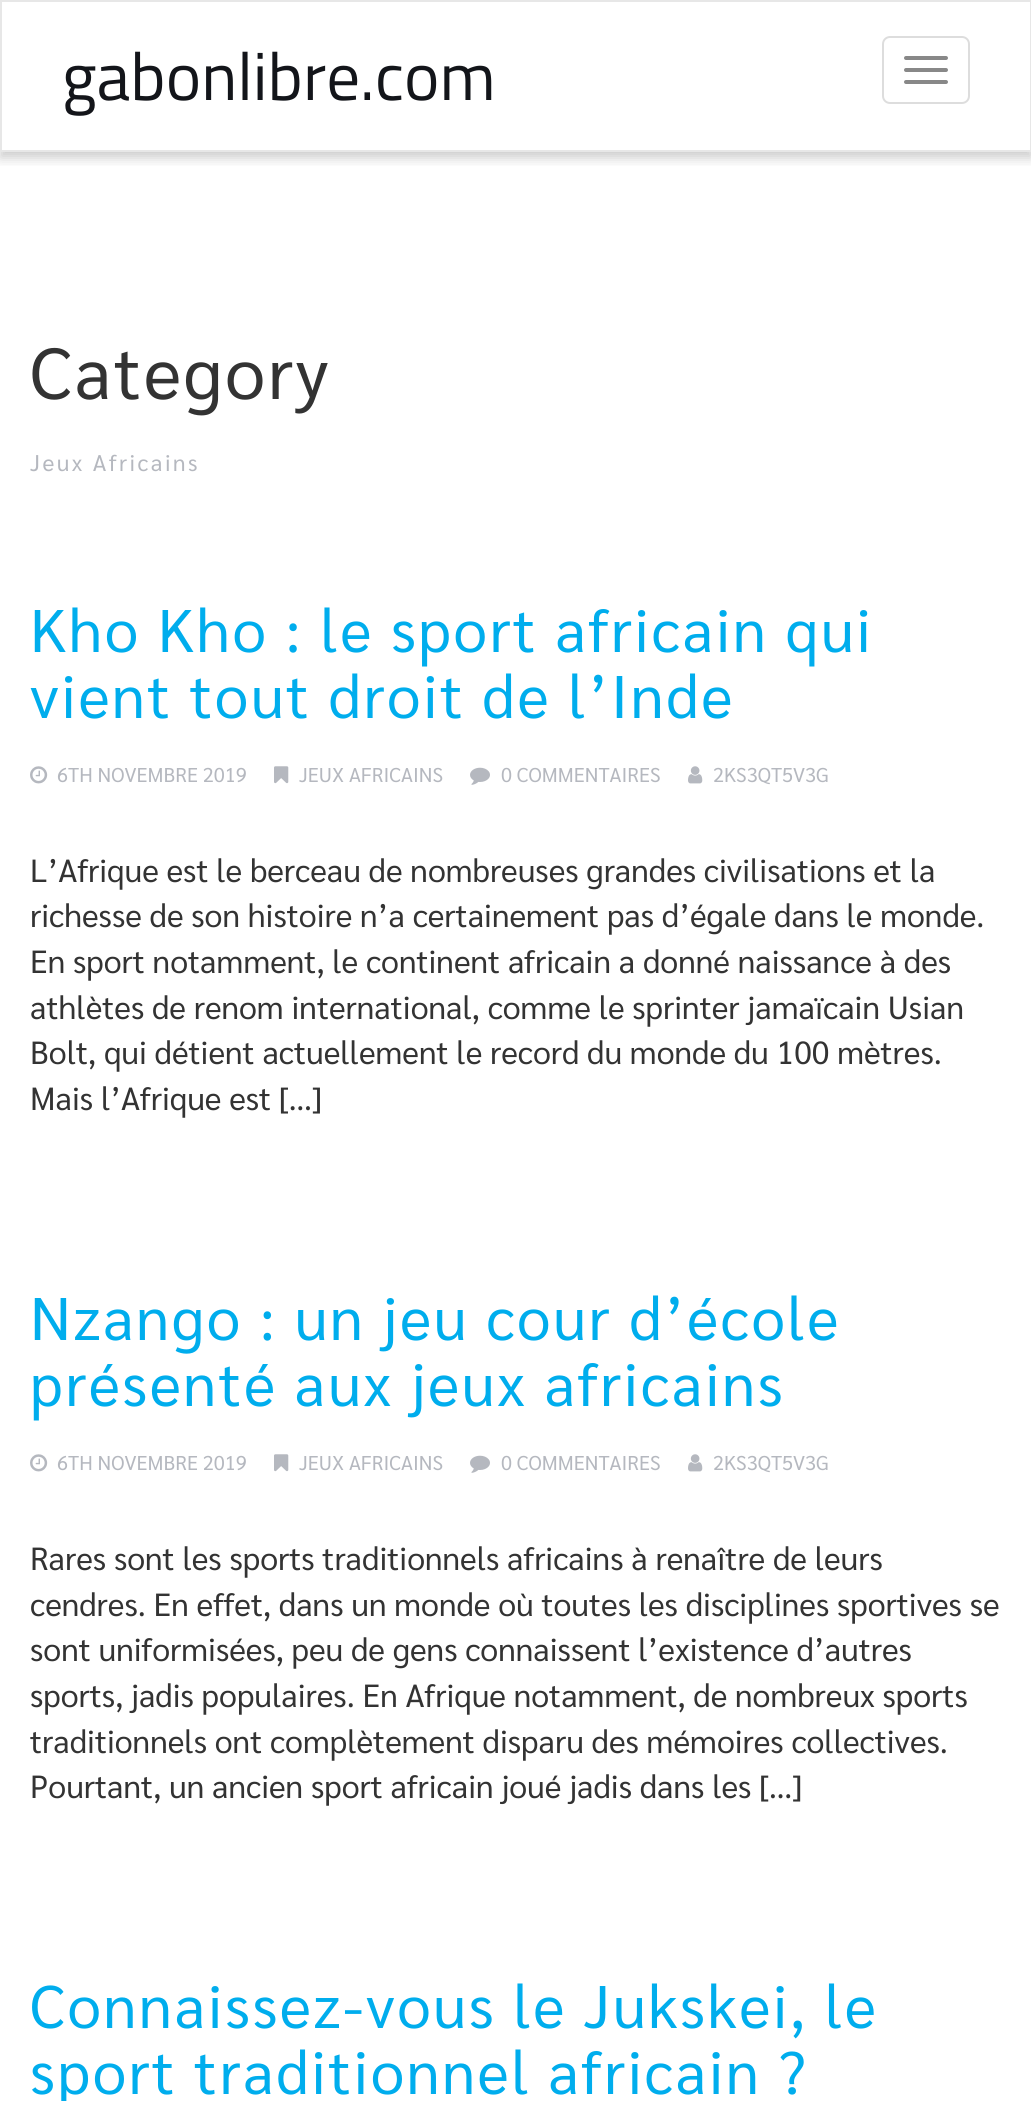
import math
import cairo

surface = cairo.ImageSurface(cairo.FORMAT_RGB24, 1031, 2101)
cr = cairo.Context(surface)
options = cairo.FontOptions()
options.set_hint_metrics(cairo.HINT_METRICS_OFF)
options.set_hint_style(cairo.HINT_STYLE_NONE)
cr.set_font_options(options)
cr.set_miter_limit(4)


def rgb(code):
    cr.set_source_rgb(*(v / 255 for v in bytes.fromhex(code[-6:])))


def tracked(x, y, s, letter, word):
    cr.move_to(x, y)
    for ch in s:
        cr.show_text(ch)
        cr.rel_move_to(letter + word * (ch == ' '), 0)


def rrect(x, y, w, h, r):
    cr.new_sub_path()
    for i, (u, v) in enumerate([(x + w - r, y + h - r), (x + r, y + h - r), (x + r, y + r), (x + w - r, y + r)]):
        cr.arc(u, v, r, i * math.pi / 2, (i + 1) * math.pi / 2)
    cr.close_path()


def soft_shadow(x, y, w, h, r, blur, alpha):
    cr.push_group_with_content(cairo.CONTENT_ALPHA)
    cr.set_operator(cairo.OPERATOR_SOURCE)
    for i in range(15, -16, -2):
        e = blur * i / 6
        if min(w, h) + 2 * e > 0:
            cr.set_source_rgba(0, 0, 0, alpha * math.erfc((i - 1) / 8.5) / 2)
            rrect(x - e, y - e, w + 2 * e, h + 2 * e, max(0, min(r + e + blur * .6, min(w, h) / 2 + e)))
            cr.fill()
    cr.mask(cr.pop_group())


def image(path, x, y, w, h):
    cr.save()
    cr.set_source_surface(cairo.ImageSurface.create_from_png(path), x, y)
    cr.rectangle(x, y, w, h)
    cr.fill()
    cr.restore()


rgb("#ffffff")
cr.paint()
cr.save()
cr.rectangle(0, 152, 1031, 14)
cr.clip()
rgb("#000000")
soft_shadow(0, 6, 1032, 152, 0, 6, 0.2)
cr.restore()
cr.rectangle(1, 1, 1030, 150)
rgb("#e7e7e7")
cr.stroke()
rrect(883, 37, 86, 66, 7)
rgb("#dddddd")
cr.stroke()
rgb("#888888")
rrect(904, 56, 44, 4, 2)
cr.fill()
rrect(904, 68, 44, 4, 2)
cr.fill()
rrect(904, 80, 44, 4, 2)
cr.fill()
image("img/1.png", 30, 766, 18, 18)
image("img/2.png", 274, 766, 15, 18)
image("img/3.png", 470, 767, 20, 18)
image("img/4.png", 688, 766, 15, 18)
image("img/1.png", 30, 1454, 18, 18)
image("img/2.png", 274, 1454, 15, 18)
image("img/3.png", 470, 1455, 20, 18)
image("img/4.png", 688, 1454, 15, 18)
cr.select_font_face("Titillium Web")
cr.set_font_size(67.25)
rgb("#13151a")
cr.move_to(62, 100)
cr.show_text("gabonlibre.com")
cr.select_font_face("Sarabun")
cr.set_font_size(72)
rgb("#333333")
tracked(30, 399, "Category", 2.5, 0)
cr.set_font_size(22.75)
rgb("#b5b8bf")
tracked(30, 471, "Jeux Africains", 2.5, 0)
cr.set_font_size(60)
rgb("#00aded")
tracked(30, 652, "Kho Kho : le sport africain qui", 2.5, 0)
tracked(30, 718, "vient tout droit de l’Inde", 2.5, 0)
cr.set_font_size(20)
rgb("#b5b8bf")
for x, y, s in [
    (57, 782, "6TH NOVEMBRE 2019"),
    (299, 782, "JEUX AFRICAINS"),
    (501, 782, "0 COMMENTAIRES"),
    (713, 782, "2KS3QT5V3G"),
]:
    cr.move_to(x, y)
    cr.show_text(s)
cr.set_font_size(32)
rgb("#333333")
for x, y, s in [
    (30, 882, "L’Afrique est le berceau de nombreuses grandes civilisations et la"),
    (30, 927, "richesse de son histoire n’a certainement pas d’égale dans le monde."),
    (30, 973, "En sport notamment, le continent africain a donné naissance à des"),
    (30, 1019, "athlètes de renom international, comme le sprinter jamaïcain Usian"),
    (30, 1064, "Bolt, qui détient actuellement le record du monde du 100 mètres."),
    (30, 1110, "Mais l’Afrique est […]"),
]:
    cr.move_to(x, y)
    cr.show_text(s)
cr.set_font_size(60)
rgb("#00aded")
tracked(30, 1340, "Nzango : un jeu cour d’école", 2.5, 0)
tracked(30, 1406, "présenté aux jeux africains", 2.5, 0)
cr.set_font_size(20)
rgb("#b5b8bf")
for x, y, s in [
    (57, 1470, "6TH NOVEMBRE 2019"),
    (299, 1470, "JEUX AFRICAINS"),
    (501, 1470, "0 COMMENTAIRES"),
    (713, 1470, "2KS3QT5V3G"),
]:
    cr.move_to(x, y)
    cr.show_text(s)
cr.set_font_size(32)
rgb("#333333")
for x, y, s in [
    (30, 1570, "Rares sont les sports traditionnels africains à renaître de leurs"),
    (30, 1616, "cendres. En effet, dans un monde où toutes les disciplines sportives se"),
    (30, 1661, "sont uniformisées, peu de gens connaissent l’existence d’autres"),
    (30, 1707, "sports, jadis populaires. En Afrique notamment, de nombreux sports"),
    (30, 1753, "traditionnels ont complètement disparu des mémoires collectives."),
    (30, 1798, "Pourtant, un ancien sport africain joué jadis dans les […]"),
]:
    cr.move_to(x, y)
    cr.show_text(s)
cr.set_font_size(60)
rgb("#00aded")
tracked(30, 2028, "Connaissez-vous le Jukskei, le", 2.5, 0)
tracked(30, 2094, "sport traditionnel africain ?", 2.5, 0)
surface.write_to_png("page.png")
